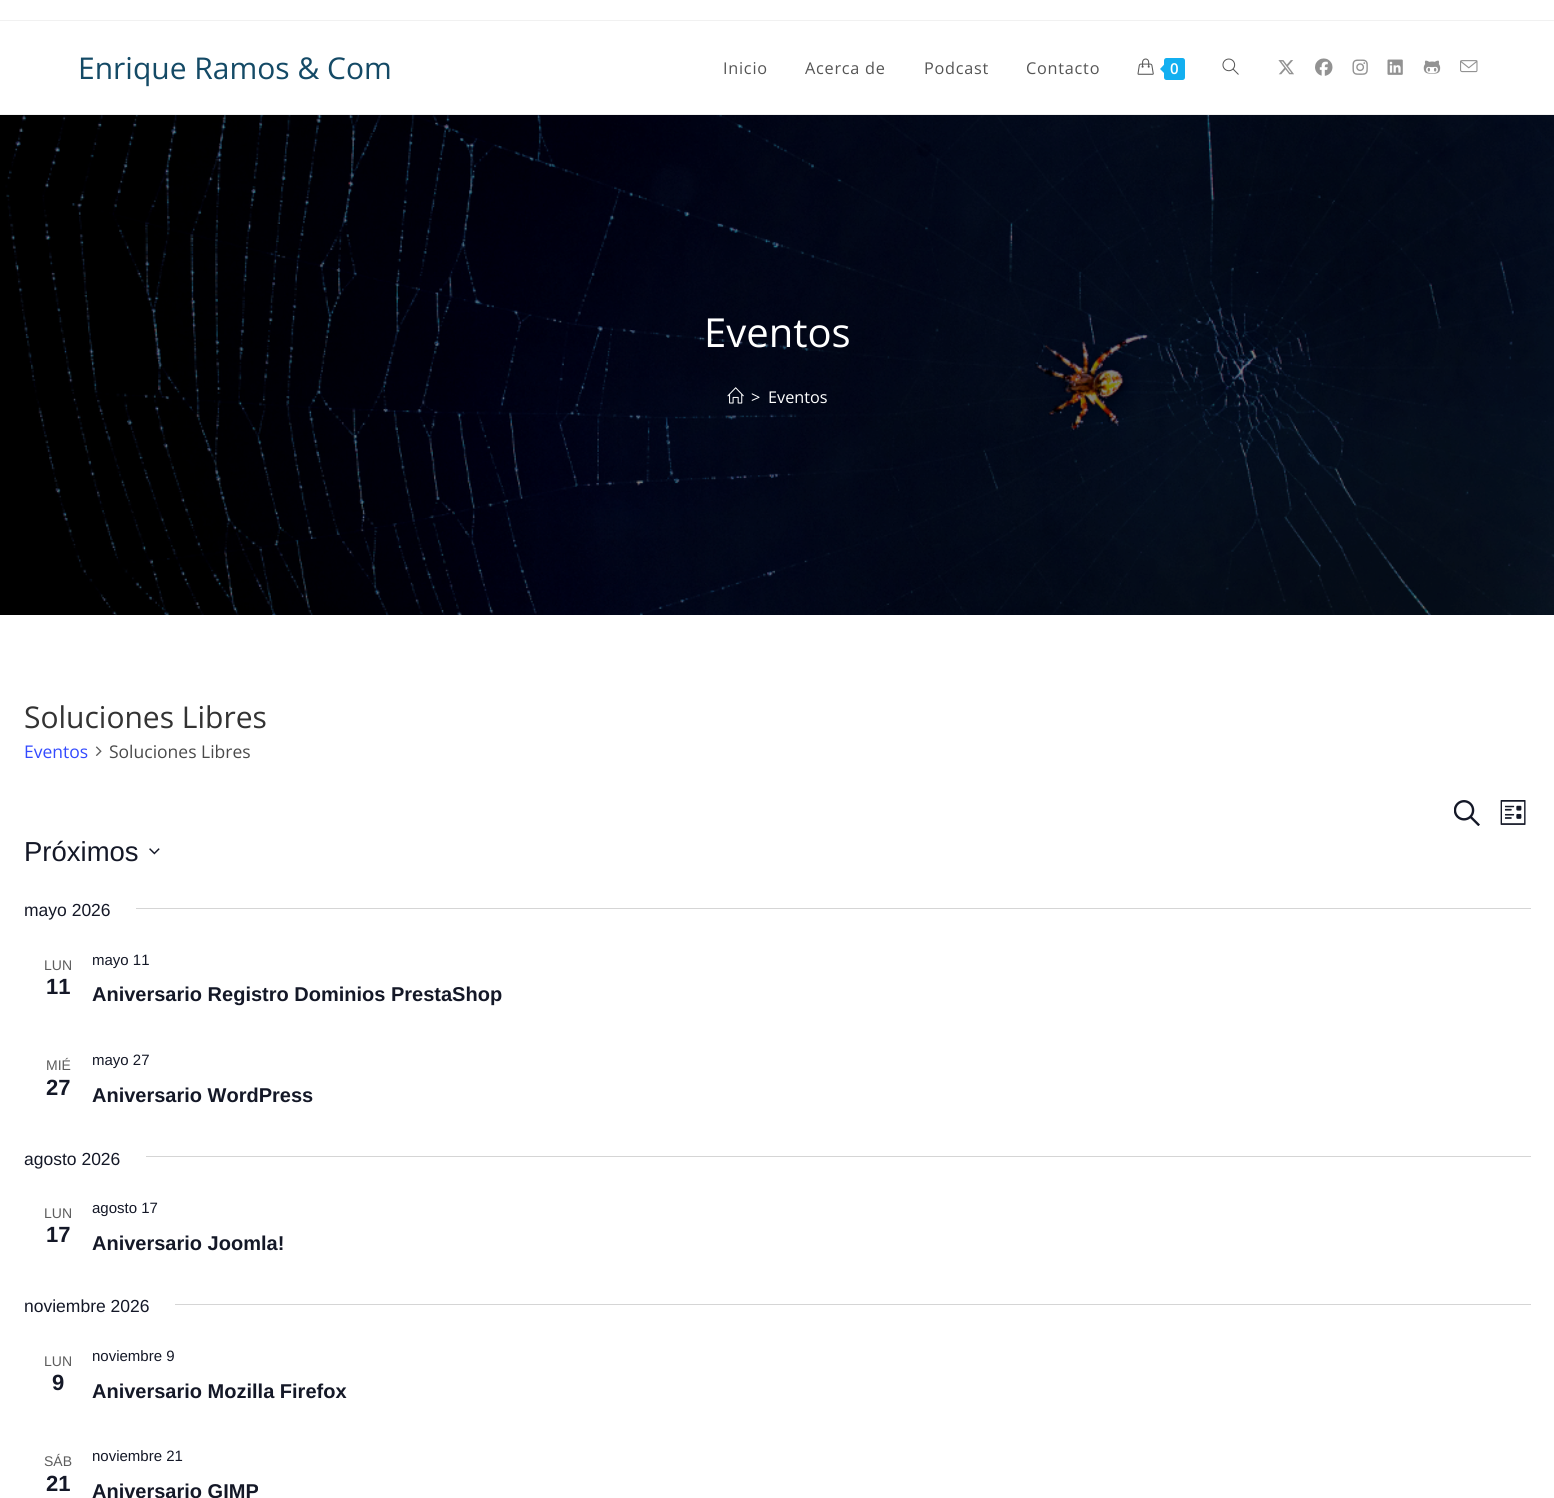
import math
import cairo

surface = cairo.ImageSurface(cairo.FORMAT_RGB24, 1554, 1498)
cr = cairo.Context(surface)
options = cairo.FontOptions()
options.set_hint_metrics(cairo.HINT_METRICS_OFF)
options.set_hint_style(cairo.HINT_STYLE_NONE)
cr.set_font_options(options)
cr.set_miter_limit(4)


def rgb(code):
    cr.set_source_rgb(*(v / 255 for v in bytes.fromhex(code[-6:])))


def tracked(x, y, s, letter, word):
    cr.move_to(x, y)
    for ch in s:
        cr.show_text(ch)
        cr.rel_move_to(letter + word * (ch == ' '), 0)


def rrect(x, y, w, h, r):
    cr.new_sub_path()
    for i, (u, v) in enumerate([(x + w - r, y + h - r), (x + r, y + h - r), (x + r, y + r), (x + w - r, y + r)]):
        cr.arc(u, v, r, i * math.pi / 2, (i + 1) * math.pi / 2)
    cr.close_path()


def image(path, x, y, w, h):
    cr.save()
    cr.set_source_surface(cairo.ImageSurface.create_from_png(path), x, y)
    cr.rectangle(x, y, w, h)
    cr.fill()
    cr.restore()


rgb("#ffffff")
cr.paint()
rgb("#f1f1f1")
cr.rectangle(0, 20, 1554, 1)
cr.fill()
cr.rectangle(0, 114, 1554, 1)
cr.fill()
image("img/1.png", 1137, 58, 17, 17)
rgb("#13aff0")
rrect(1164, 58, 21, 22, 2.5)
cr.fill()
cr.new_path()
cr.move_to(1166, 62.5)
cr.line_to(1166, 75)
cr.line_to(1160, 69)
cr.close_path()
cr.fill()
image("img/2.png", 1222, 58, 17, 17)
image("img/3.png", 1278, 60, 16, 15)
image("img/4.png", 1315, 58, 18, 18)
image("img/5.png", 1352, 59, 16, 16)
image("img/6.png", 1387, 59, 16, 16)
image("img/7.png", 1423, 60, 18, 14)
image("img/8.png", 1460, 60, 18, 13)
rgb("#000000")
cr.rectangle(0, 115, 5, 500)
cr.fill()
image("img/9.png", 5, 115, 1549, 500)
image("img/10.png", 727, 387, 17, 17)
image("img/11.png", 95, 746, 7, 10)
image("img/12.png", 1454, 800, 26, 26)
image("img/13.png", 1500, 800, 26, 25)
image("img/14.png", 149, 848, 11, 7)
for x, y, w, h, color in [
    (136, 908, 1395, 1, "#d5d5d5"),
    (146, 1156, 1385, 1, "#d5d5d5"),
    (175, 1304, 1356, 1, "#d5d5d5"),
]:
    rgb(color)
    cr.rectangle(x, y, w, h)
    cr.fill()
cr.select_font_face("Open Sans")
cr.set_font_size(30)
rgb("#144a66")
cr.move_to(78, 79)
cr.show_text("Enrique Ramos & Com")
cr.set_font_size(16.25)
rgb("#555555")
for x, y, s in [
    (723, 74, "Inicio"),
    (805, 74, "Acerca de"),
    (924, 74, "Podcast"),
    (1026, 74, "Contacto"),
]:
    tracked(x, y, s, 0.75, 0)
cr.select_font_face("Open Sans SemiBold")
cr.set_font_size(15)
rgb("#ffffff")
cr.move_to(1170, 74)
cr.show_text("0")
cr.select_font_face("Open Sans")
cr.set_font_size(40)
cr.move_to(704, 347)
cr.show_text("Eventos")
cr.set_font_size(16.25)
cr.move_to(751, 403)
cr.show_text(">")
cr.move_to(768, 403)
cr.show_text("Eventos")
cr.set_font_size(30)
rgb("#333333")
cr.move_to(24, 728)
cr.show_text("Soluciones Libres")
cr.set_font_size(17.5)
rgb("#334aff")
cr.move_to(24, 758)
cr.show_text("Eventos")
rgb("#4a4a4a")
cr.move_to(109, 758)
cr.show_text("Soluciones Libres")
cr.select_font_face("Liberation Sans")
cr.set_font_size(27.5)
rgb("#141827")
cr.move_to(24, 861)
cr.show_text("Próximos")
cr.set_font_size(17.5)
cr.move_to(24, 916)
cr.show_text("mayo 2026")
cr.set_font_size(14)
rgb("#5d5d5d")
cr.move_to(44, 970)
cr.show_text("LUN")
cr.select_font_face("Liberation Sans", cairo.FONT_SLANT_NORMAL, cairo.FONT_WEIGHT_BOLD)
cr.set_font_size(22)
rgb("#141827")
cr.move_to(46, 994)
cr.show_text("11")
cr.select_font_face("Liberation Sans")
cr.set_font_size(15)
cr.move_to(92, 965)
cr.show_text("mayo 11")
cr.select_font_face("Liberation Sans", cairo.FONT_SLANT_NORMAL, cairo.FONT_WEIGHT_BOLD)
cr.set_font_size(20)
cr.move_to(92, 1001)
cr.show_text("Aniversario Registro Dominios PrestaShop")
cr.select_font_face("Liberation Sans")
cr.set_font_size(14)
rgb("#5d5d5d")
cr.move_to(46, 1070)
cr.show_text("MIÉ")
cr.select_font_face("Liberation Sans", cairo.FONT_SLANT_NORMAL, cairo.FONT_WEIGHT_BOLD)
cr.set_font_size(22)
rgb("#141827")
cr.move_to(46, 1095)
cr.show_text("27")
cr.select_font_face("Liberation Sans")
cr.set_font_size(15)
cr.move_to(92, 1065)
cr.show_text("mayo 27")
cr.select_font_face("Liberation Sans", cairo.FONT_SLANT_NORMAL, cairo.FONT_WEIGHT_BOLD)
cr.set_font_size(20)
cr.move_to(92, 1102)
cr.show_text("Aniversario WordPress")
cr.select_font_face("Liberation Sans")
cr.set_font_size(17.5)
cr.move_to(24, 1165)
cr.show_text("agosto 2026")
cr.set_font_size(14)
rgb("#5d5d5d")
cr.move_to(44, 1218)
cr.show_text("LUN")
cr.select_font_face("Liberation Sans", cairo.FONT_SLANT_NORMAL, cairo.FONT_WEIGHT_BOLD)
cr.set_font_size(22)
rgb("#141827")
cr.move_to(46, 1242)
cr.show_text("17")
cr.select_font_face("Liberation Sans")
cr.set_font_size(15)
cr.move_to(92, 1213)
cr.show_text("agosto 17")
cr.select_font_face("Liberation Sans", cairo.FONT_SLANT_NORMAL, cairo.FONT_WEIGHT_BOLD)
cr.set_font_size(20)
cr.move_to(92, 1250)
cr.show_text("Aniversario Joomla!")
cr.select_font_face("Liberation Sans")
cr.set_font_size(17.5)
cr.move_to(24, 1312)
cr.show_text("noviembre 2026")
cr.set_font_size(14)
rgb("#5d5d5d")
cr.move_to(44, 1366)
cr.show_text("LUN")
cr.select_font_face("Liberation Sans", cairo.FONT_SLANT_NORMAL, cairo.FONT_WEIGHT_BOLD)
cr.set_font_size(22)
rgb("#141827")
cr.move_to(52, 1390)
cr.show_text("9")
cr.select_font_face("Liberation Sans")
cr.set_font_size(15)
cr.move_to(92, 1361)
cr.show_text("noviembre 9")
cr.select_font_face("Liberation Sans", cairo.FONT_SLANT_NORMAL, cairo.FONT_WEIGHT_BOLD)
cr.set_font_size(20)
cr.move_to(92, 1398)
cr.show_text("Aniversario Mozilla Firefox")
cr.select_font_face("Liberation Sans")
cr.set_font_size(14)
rgb("#5d5d5d")
cr.move_to(44, 1466)
cr.show_text("SÁB")
cr.select_font_face("Liberation Sans", cairo.FONT_SLANT_NORMAL, cairo.FONT_WEIGHT_BOLD)
cr.set_font_size(22)
rgb("#141827")
cr.move_to(46, 1491)
cr.show_text("21")
cr.select_font_face("Liberation Sans")
cr.set_font_size(15)
cr.move_to(92, 1461)
cr.show_text("noviembre 21")
cr.select_font_face("Liberation Sans", cairo.FONT_SLANT_NORMAL, cairo.FONT_WEIGHT_BOLD)
cr.set_font_size(20)
cr.move_to(92, 1498)
cr.show_text("Aniversario GIMP")
surface.write_to_png("page.png")
